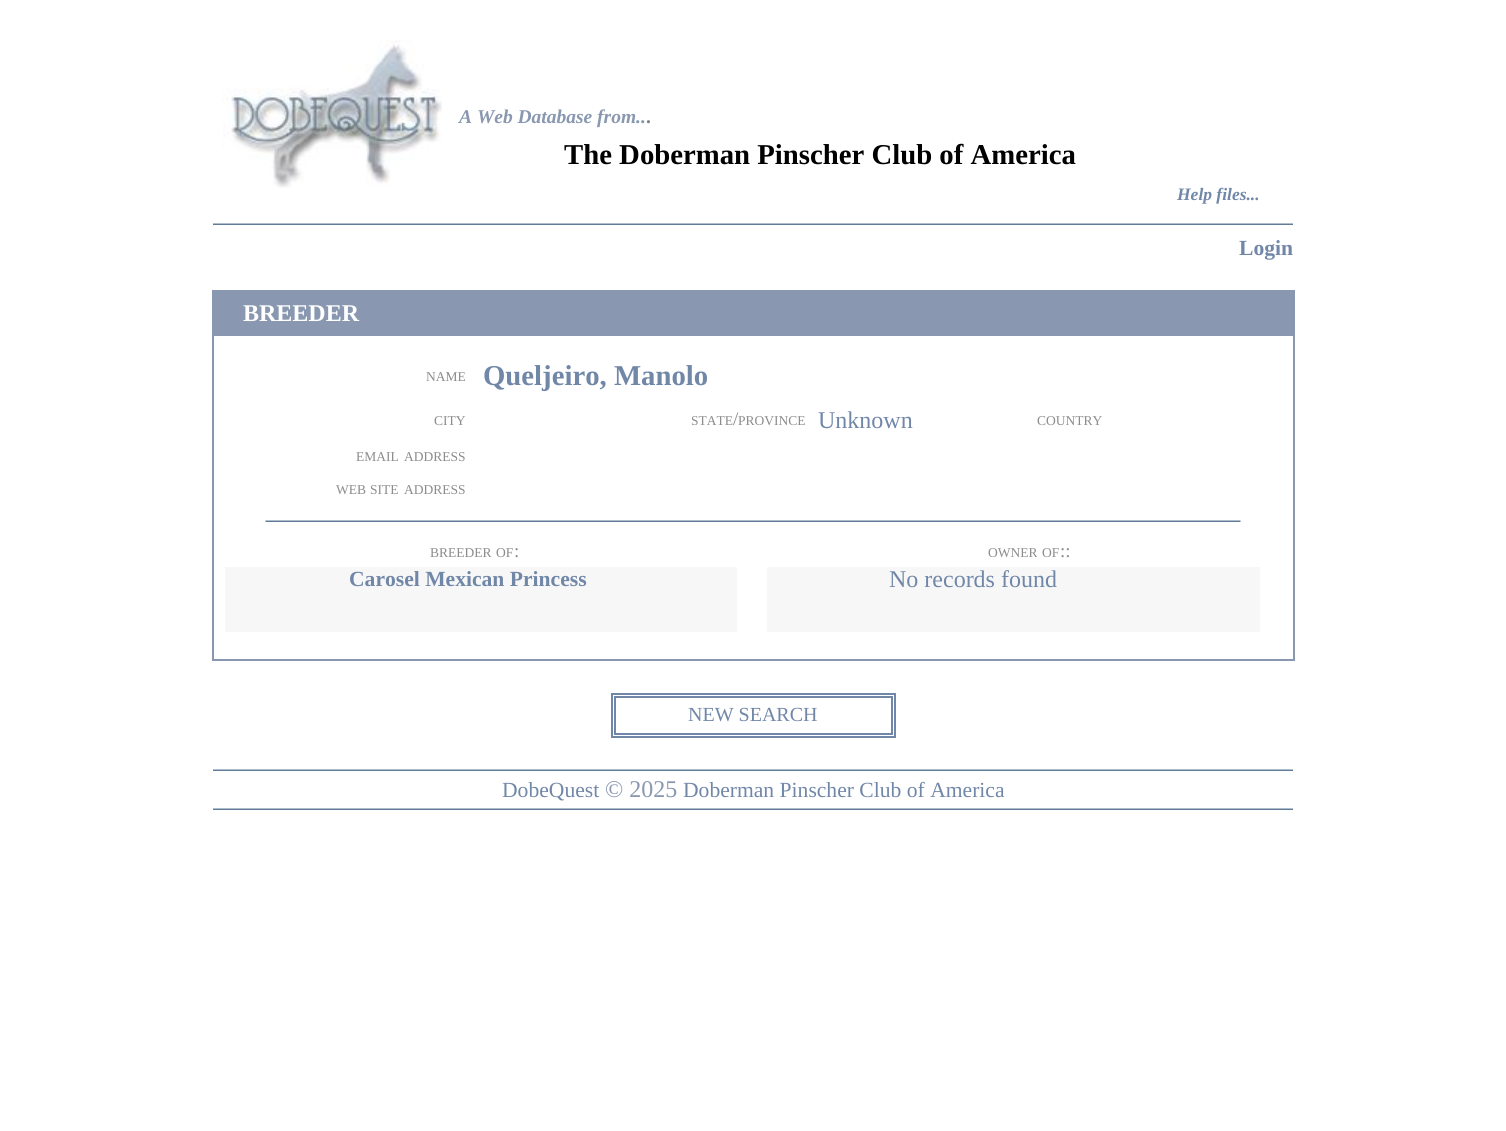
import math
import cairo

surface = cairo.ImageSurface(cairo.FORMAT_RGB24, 1506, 1131)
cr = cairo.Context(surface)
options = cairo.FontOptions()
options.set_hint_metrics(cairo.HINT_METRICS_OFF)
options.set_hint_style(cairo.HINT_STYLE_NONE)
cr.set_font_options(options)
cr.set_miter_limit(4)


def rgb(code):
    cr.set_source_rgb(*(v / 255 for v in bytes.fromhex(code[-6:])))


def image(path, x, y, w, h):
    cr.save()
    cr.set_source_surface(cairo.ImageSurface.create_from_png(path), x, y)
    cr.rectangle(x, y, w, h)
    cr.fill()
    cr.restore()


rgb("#ffffff")
cr.paint()
image("img/1.png", 222, 40, 220, 148)
image("img/2.png", 213, 223, 1080, 2)
for x, y, w, h, color in [
    (212, 290, 1083, 2, "#8998b0"),
    (1293, 290, 2, 370, "#8998b0"),
    (212, 659, 1083, 2, "#8998b0"),
    (212, 290, 2, 370, "#8998b0"),
    (214, 292, 1079, 44, "#8998b0"),
]:
    rgb(color)
    cr.rectangle(x, y, w, h)
    cr.fill()
image("img/3.png", 265, 520, 976, 2)
rgb("#f7f7f7")
cr.rectangle(225, 567, 512, 65)
cr.fill()
cr.rectangle(767, 567, 493, 65)
cr.fill()
cr.rectangle(612, 694, 283, 43)
rgb("#7187a8")
cr.stroke()
cr.rectangle(615, 697, 277, 37)
cr.stroke()
image("img/2.png", 213, 769, 1080, 2)
image("img/2.png", 213, 808, 1080, 2)
cr.select_font_face("Liberation Serif", cairo.FONT_SLANT_ITALIC, cairo.FONT_WEIGHT_BOLD)
cr.set_font_size(19.5)
rgb("#8998b0")
cr.move_to(459, 123)
cr.show_text("A Web Database from..")
cr.select_font_face("Liberation Serif", cairo.FONT_SLANT_NORMAL, cairo.FONT_WEIGHT_BOLD)
rgb("#808080")
cr.move_to(646, 123)
cr.show_text(".")
cr.set_font_size(28.75)
rgb("#000000")
cr.move_to(564, 164)
cr.show_text("The Doberman Pinscher Club of America")
cr.select_font_face("Liberation Serif", cairo.FONT_SLANT_ITALIC, cairo.FONT_WEIGHT_BOLD)
cr.set_font_size(17.5)
rgb("#7187a8")
cr.move_to(1177, 200)
cr.show_text("Help files...")
cr.select_font_face("Liberation Serif", cairo.FONT_SLANT_NORMAL, cairo.FONT_WEIGHT_BOLD)
cr.set_font_size(21.6)
cr.move_to(1239, 255)
cr.show_text("Login")
cr.set_font_size(24)
rgb("#ffffff")
cr.move_to(243, 321)
cr.show_text("BREEDER")
cr.select_font_face("Liberation Serif")
cr.set_font_size(13.5)
rgb("#8c8c8c")
cr.move_to(426, 381)
cr.show_text("NAME")
cr.select_font_face("Liberation Serif", cairo.FONT_SLANT_NORMAL, cairo.FONT_WEIGHT_BOLD)
cr.set_font_size(28.75)
rgb("#7187a8")
cr.move_to(483, 385)
cr.show_text("Queljeiro, Manolo")
cr.select_font_face("Liberation Serif")
cr.set_font_size(13.5)
rgb("#8c8c8c")
cr.move_to(434, 425)
cr.show_text("CITY")
cr.move_to(691, 425)
cr.show_text("STATE")
cr.set_font_size(19)
cr.move_to(733, 425)
cr.show_text("/")
cr.set_font_size(13.5)
cr.move_to(738, 425)
cr.show_text("PROVINCE")
cr.set_font_size(24)
rgb("#7187a8")
cr.move_to(818, 428)
cr.show_text("Unknown")
cr.set_font_size(13.5)
rgb("#8c8c8c")
for x, y, s in [
    (1037, 425, "COUNTRY"),
    (356, 461, "EMAIL"),
    (404, 461, "ADDRESS"),
    (336, 494, "WEB"),
    (370, 494, "SITE"),
    (404, 494, "ADDRESS"),
    (430, 557, "BREEDER"),
    (496, 557, "OF"),
]:
    cr.move_to(x, y)
    cr.show_text(s)
cr.set_font_size(19)
cr.move_to(514, 557)
cr.show_text(":")
cr.set_font_size(13.5)
cr.move_to(988, 557)
cr.show_text("OWNER")
cr.move_to(1042, 557)
cr.show_text("OF")
cr.set_font_size(19)
cr.move_to(1060, 557)
cr.show_text("::")
cr.select_font_face("Liberation Serif", cairo.FONT_SLANT_NORMAL, cairo.FONT_WEIGHT_BOLD)
cr.set_font_size(21.6)
rgb("#7187a8")
cr.move_to(349, 586)
cr.show_text("Carosel Mexican Princess")
cr.select_font_face("Liberation Serif")
cr.set_font_size(24)
cr.move_to(889, 587)
cr.show_text("No records found")
cr.set_font_size(20)
cr.move_to(688, 721)
cr.show_text("NEW SEARCH")
cr.set_font_size(21.6)
cr.move_to(502, 797)
cr.show_text("DobeQuest")
cr.set_font_size(24)
rgb("#8998b0")
cr.move_to(605, 797)
cr.show_text("© 2025")
cr.set_font_size(21.6)
rgb("#7187a8")
cr.move_to(683, 797)
cr.show_text("Doberman Pinscher Club of America")
surface.write_to_png("page.png")
